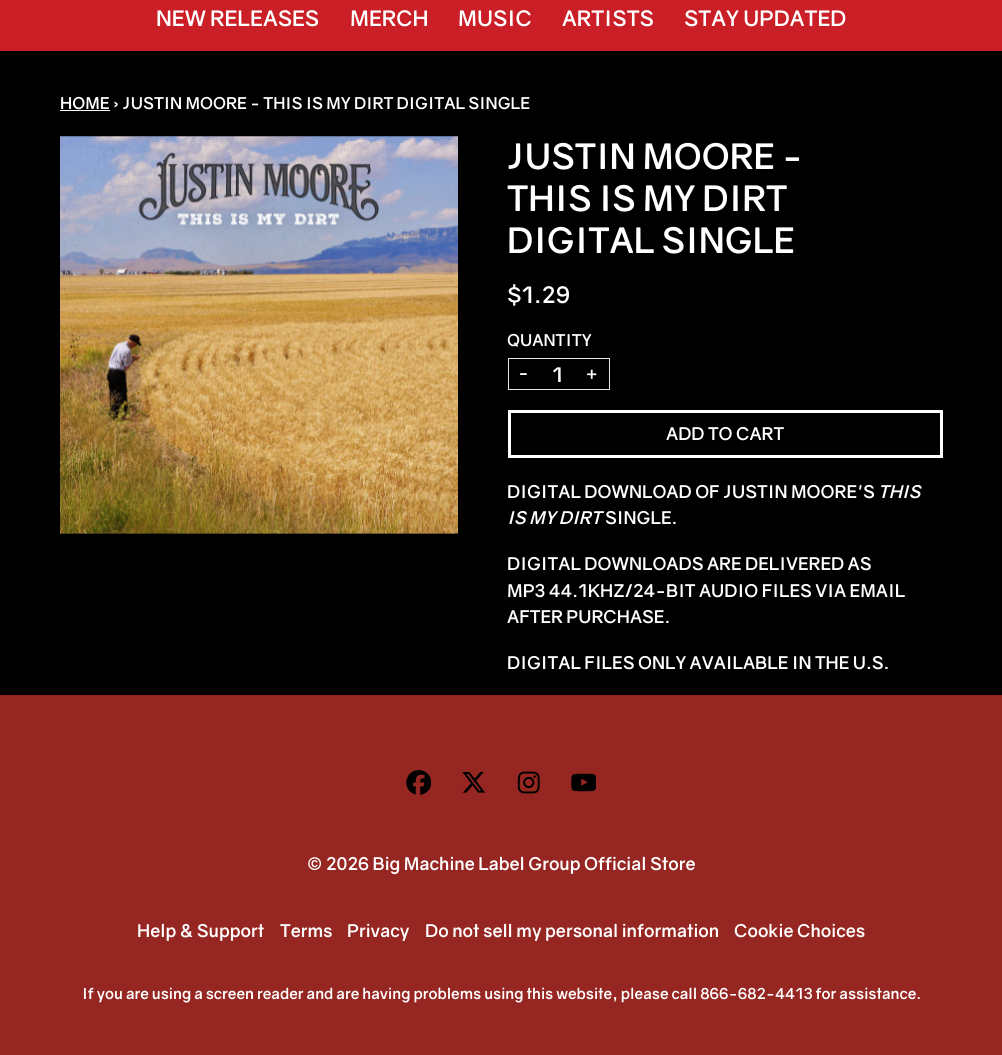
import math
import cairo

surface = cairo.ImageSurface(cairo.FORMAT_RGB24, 1002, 1055)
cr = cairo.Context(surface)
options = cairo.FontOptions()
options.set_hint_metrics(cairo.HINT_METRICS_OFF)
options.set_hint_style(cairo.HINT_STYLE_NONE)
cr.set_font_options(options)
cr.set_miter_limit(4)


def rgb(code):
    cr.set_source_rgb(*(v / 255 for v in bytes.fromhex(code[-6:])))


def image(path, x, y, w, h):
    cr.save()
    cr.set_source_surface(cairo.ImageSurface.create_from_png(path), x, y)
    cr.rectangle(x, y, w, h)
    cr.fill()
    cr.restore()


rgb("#000000")
cr.paint()
rgb("#ca1f26")
cr.rectangle(0, 0, 1002, 51)
cr.fill()
rgb("#ffffff")
cr.rectangle(60, 110, 50, 1)
cr.fill()
image("img/1.png", 60, 136, 398, 398)
cr.rectangle(508.5, 358.5, 101, 31)
rgb("#e5e7eb")
cr.set_line_width(1)
cr.stroke()
cr.rectangle(509.5, 411.5, 432, 45)
rgb("#ffffff")
cr.set_line_width(3)
cr.stroke()
rgb("#962622")
cr.rectangle(0, 695, 1002, 360)
cr.fill()
image("img/2.png", 406, 770, 25, 25)
image("img/3.png", 462, 772, 23, 21)
image("img/4.png", 517, 771, 23, 23)
image("img/5.png", 571, 773, 25, 19)
cr.select_font_face("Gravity", cairo.FONT_SLANT_NORMAL, cairo.FONT_WEIGHT_BOLD)
cr.set_font_size(21.25)
rgb("#ffffff")
for x, y, s in [
    (156, 26, "NEW RELEASES"),
    (350, 26, "MERCH"),
    (458, 26, "MUSIC"),
    (562, 26, "ARTISTS"),
    (684, 26, "STAY UPDATED"),
]:
    cr.move_to(x, y)
    cr.show_text(s)
cr.set_font_size(16.25)
cr.move_to(60, 109)
cr.show_text("HOME › JUSTIN MOORE - THIS IS MY DIRT DIGITAL SINGLE")
cr.set_font_size(35)
for x, y, s in [
    (507, 169, "JUSTIN MOORE -"),
    (507, 211, "THIS IS MY DIRT"),
    (507, 253, "DIGITAL SINGLE"),
]:
    cr.move_to(x, y)
    cr.show_text(s)
cr.set_font_size(22.5)
cr.move_to(507, 303)
cr.show_text("$1.29")
cr.set_font_size(16.25)
cr.move_to(507, 346)
cr.show_text("QUANTITY")
cr.set_font_size(17.5)
cr.move_to(518, 379)
cr.show_text("-")
cr.set_font_size(20)
cr.move_to(552, 382)
cr.show_text("1")
cr.set_font_size(17.5)
for x, y, s in [
    (585, 379, "+"),
    (666, 440, "ADD TO CART"),
    (507, 498, "DIGITAL DOWNLOAD OF JUSTIN MOORE'S"),
]:
    cr.move_to(x, y)
    cr.show_text(s)
cr.select_font_face("Gravity", cairo.FONT_SLANT_ITALIC, cairo.FONT_WEIGHT_BOLD)
cr.move_to(878, 498)
cr.show_text("THIS")
cr.move_to(507, 524)
cr.show_text("IS MY DIRT")
cr.select_font_face("Gravity", cairo.FONT_SLANT_NORMAL, cairo.FONT_WEIGHT_BOLD)
for x, y, s in [
    (605, 524, "SINGLE."),
    (507, 570, "DIGITAL DOWNLOADS ARE DELIVERED AS"),
    (507, 597, "MP3 44.1KHZ/24-BIT AUDIO FILES VIA EMAIL"),
    (507, 623, "AFTER PURCHASE."),
    (507, 669, "DIGITAL FILES ONLY AVAILABLE IN THE U.S."),
    (307, 870, "© 2026 Big Machine Label Group Official Store"),
    (137, 937, "Help & Support"),
    (280, 937, "Terms"),
    (347, 937, "Privacy"),
    (425, 937, "Do not sell my personal information"),
    (734, 937, "Cookie Choices"),
]:
    cr.move_to(x, y)
    cr.show_text(s)
cr.set_font_size(15)
cr.move_to(82, 999)
cr.show_text("If you are using a screen reader and are having problems using this website, please call 866-682-4413 for assistance.")
surface.write_to_png("page.png")
